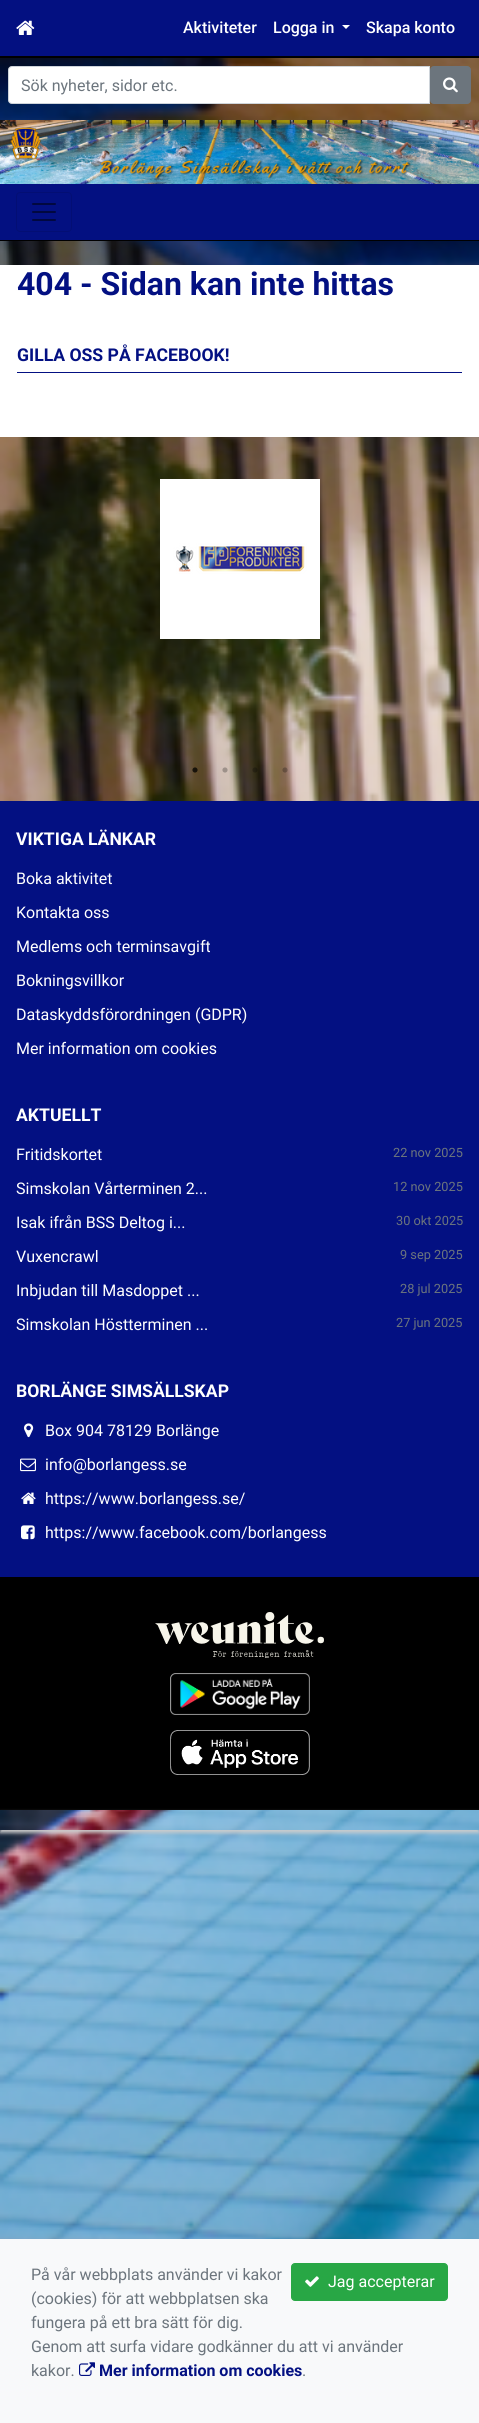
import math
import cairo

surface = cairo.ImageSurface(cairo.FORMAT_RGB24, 479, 2423)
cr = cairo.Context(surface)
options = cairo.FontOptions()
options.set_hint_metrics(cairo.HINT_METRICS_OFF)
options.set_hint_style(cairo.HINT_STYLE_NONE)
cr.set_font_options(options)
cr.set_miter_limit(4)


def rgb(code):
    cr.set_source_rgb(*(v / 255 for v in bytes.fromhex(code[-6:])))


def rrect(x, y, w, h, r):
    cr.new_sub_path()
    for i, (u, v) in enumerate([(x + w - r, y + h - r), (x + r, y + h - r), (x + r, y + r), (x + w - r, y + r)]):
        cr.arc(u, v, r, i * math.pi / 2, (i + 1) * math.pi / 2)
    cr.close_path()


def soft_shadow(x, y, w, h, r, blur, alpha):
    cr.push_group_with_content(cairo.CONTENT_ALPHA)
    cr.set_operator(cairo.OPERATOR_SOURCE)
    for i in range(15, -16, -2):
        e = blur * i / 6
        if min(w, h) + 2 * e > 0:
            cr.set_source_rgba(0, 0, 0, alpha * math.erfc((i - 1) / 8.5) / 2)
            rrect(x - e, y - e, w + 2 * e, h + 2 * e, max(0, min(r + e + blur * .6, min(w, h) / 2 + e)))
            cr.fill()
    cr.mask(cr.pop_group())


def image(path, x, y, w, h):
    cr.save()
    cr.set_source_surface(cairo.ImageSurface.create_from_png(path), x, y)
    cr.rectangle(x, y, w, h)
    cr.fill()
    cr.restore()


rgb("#ffffff")
cr.paint()
image("img/1.png", 0, 58, 479, 2181)
rgb("#031081")
cr.rectangle(0, 0, 479, 56)
cr.fill()
rgb("#000000")
cr.rectangle(0, 56, 479, 2)
cr.fill()
image("img/2.png", 16, 20, 19, 15)
rgb("#ffffff")
cr.new_path()
cr.move_to(342, 25)
cr.line_to(350, 25)
cr.line_to(346, 29)
cr.close_path()
cr.fill()
cr.new_path()
cr.move_to(12, 66.5)
cr.line_to(429.5, 66.5)
cr.line_to(429.5, 103.5)
cr.line_to(12, 103.5)
cr.curve_to(10, 103.5, 8.5, 102, 8.5, 100)
cr.line_to(8.5, 70)
cr.curve_to(8.5, 68, 10, 66.5, 12, 66.5)
cr.close_path()
cr.fill_preserve()
rgb("#ced4da")
cr.set_line_width(1)
cr.stroke()
rgb("#6c757d")
rrect(430.5, 66.5, 40, 37, 3.5)
cr.fill_preserve()
cr.stroke()
image("img/3.png", 443, 77, 15, 16)
rgb("#646464")
soft_shadow(0, 122, 479, 64, 0, 3, 0.3)
image("img/4.png", 0, 120, 479, 64)
rgb("#031081")
cr.rectangle(0, 184, 479, 56)
cr.fill()
rrect(16.5, 192.5, 55, 39, 3.5)
rgb("#030e74")
cr.stroke()
image("img/5.png", 32, 203, 24, 18)
for x, y, w, h, color in [
    (0, 240, 479, 1, "#000000"),
    (0, 265, 479, 172, "#ffffff"),
    (17, 372, 445, 1, "#031082"),
]:
    rgb(color)
    cr.rectangle(x, y, w, h)
    cr.fill()
image("img/6.png", 160, 479, 160, 160)
image("img/7.png", 192, 767, 6, 6)
image("img/8.png", 222, 767, 6, 6)
image("img/9.png", 252, 767, 6, 6)
image("img/10.png", 282, 767, 6, 6)
cr.rectangle(0, 801, 479, 776)
cr.fill()
image("img/11.png", 24, 1423, 10, 15)
image("img/12.png", 20, 1458, 16, 14)
image("img/13.png", 21, 1492, 15, 12)
image("img/14.png", 21, 1525, 14, 15)
rgb("#000000")
cr.rectangle(0, 1577, 479, 233)
cr.fill()
image("img/15.png", 155, 1612, 169, 46)
image("img/16.png", 170, 1673, 140, 42)
image("img/17.png", 170, 1730, 140, 45)
cr.save()
cr.set_fill_rule(cairo.FILL_RULE_EVEN_ODD)
cr.new_path()
cr.move_to(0, 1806)
cr.line_to(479, 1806)
cr.line_to(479, 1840)
cr.line_to(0, 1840)
cr.close_path()
cr.move_to(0, 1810)
cr.line_to(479, 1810)
cr.line_to(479, 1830)
cr.line_to(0, 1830)
cr.close_path()
cr.clip()
rgb("#cccccc")
soft_shadow(0, 1813, 479, 20, 0, 2, 1)
cr.restore()
rgb("#f8f9fa")
cr.rectangle(0, 2239, 479, 184)
cr.fill()
image("img/18.png", 79, 2362, 16, 14)
rgb("#28a745")
rrect(291.5, 2263.5, 156, 37, 3.5)
cr.fill_preserve()
cr.stroke()
image("img/19.png", 305, 2276, 14, 11)
cr.select_font_face("Roboto Medium")
cr.set_font_size(16)
rgb("#ffffff")
for x, y, s in [
    (183, 33, "Aktiviteter"),
    (273, 33, "Logga in"),
    (366, 33, "Skapa konto"),
]:
    cr.move_to(x, y)
    cr.show_text(s)
cr.select_font_face("Roboto")
rgb("#6c757d")
cr.move_to(21, 91)
cr.show_text("Sök nyheter, sidor etc.")
cr.select_font_face("Roboto", cairo.FONT_SLANT_NORMAL, cairo.FONT_WEIGHT_BOLD)
cr.set_font_size(32)
rgb("#031082")
cr.move_to(17, 295)
cr.show_text("404 - Sidan kan inte hittas")
cr.set_font_size(17.6)
cr.move_to(17, 361)
cr.show_text("GILLA OSS PÅ FACEBOOK!")
rgb("#ffffff")
cr.move_to(16, 845)
cr.show_text("VIKTIGA LÄNKAR")
cr.select_font_face("Roboto")
cr.set_font_size(16)
for x, y, s in [
    (16, 884, "Boka aktivitet"),
    (16, 918, "Kontakta oss"),
    (16, 952, "Medlems och terminsavgift"),
    (16, 986, "Bokningsvillkor"),
    (16, 1020, "Dataskyddsförordningen (GDPR)"),
    (16, 1054, "Mer information om cookies"),
]:
    cr.move_to(x, y)
    cr.show_text(s)
cr.select_font_face("Roboto", cairo.FONT_SLANT_NORMAL, cairo.FONT_WEIGHT_BOLD)
cr.set_font_size(17.6)
cr.move_to(16, 1121)
cr.show_text("AKTUELLT")
cr.select_font_face("Roboto")
cr.set_font_size(16)
cr.move_to(16, 1160)
cr.show_text("Fritidskortet")
cr.set_font_size(12.75)
rgb("#6c757d")
cr.move_to(393, 1157)
cr.show_text("22 nov 2025")
cr.set_font_size(16)
rgb("#ffffff")
cr.move_to(16, 1194)
cr.show_text("Simskolan Vårterminen 2...")
cr.set_font_size(12.75)
rgb("#6c757d")
cr.move_to(393, 1191)
cr.show_text("12 nov 2025")
cr.set_font_size(16)
rgb("#ffffff")
cr.move_to(16, 1228)
cr.show_text("Isak ifrån BSS Deltog i...")
cr.set_font_size(12.75)
rgb("#6c757d")
cr.move_to(396, 1225)
cr.show_text("30 okt 2025")
cr.set_font_size(16)
rgb("#ffffff")
cr.move_to(16, 1262)
cr.show_text("Vuxencrawl")
cr.set_font_size(12.75)
rgb("#6c757d")
cr.move_to(400, 1259)
cr.show_text("9 sep 2025")
cr.set_font_size(16)
rgb("#ffffff")
cr.move_to(16, 1296)
cr.show_text("Inbjudan till Masdoppet ...")
cr.set_font_size(12.75)
rgb("#6c757d")
cr.move_to(400, 1293)
cr.show_text("28 jul 2025")
cr.set_font_size(16)
rgb("#ffffff")
cr.move_to(16, 1330)
cr.show_text("Simskolan Höstterminen ...")
cr.set_font_size(12.75)
rgb("#6c757d")
cr.move_to(396, 1327)
cr.show_text("27 jun 2025")
cr.select_font_face("Roboto", cairo.FONT_SLANT_NORMAL, cairo.FONT_WEIGHT_BOLD)
cr.set_font_size(17.6)
rgb("#ffffff")
cr.move_to(16, 1397)
cr.show_text("BORLÄNGE SIMSÄLLSKAP")
cr.select_font_face("Roboto")
cr.set_font_size(16)
for x, y, s in [
    (45, 1436, "Box 904 78129 Borlänge"),
    (45, 1470, "info@borlangess.se"),
    (45, 1504, "https://www.borlangess.se/"),
    (45, 1538, "https://www.facebook.com/borlangess"),
]:
    cr.move_to(x, y)
    cr.show_text(s)
rgb("#6c757d")
for x, y, s in [
    (31, 2280, "På vår webbplats använder vi kakor"),
    (31, 2304, "(cookies) för att webbplatsen ska"),
    (31, 2328, "fungera på ett bra sätt för dig."),
    (31, 2352, "Genom att surfa vidare godkänner du att vi använder"),
    (31, 2376, "kakor."),
]:
    cr.move_to(x, y)
    cr.show_text(s)
cr.select_font_face("Roboto", cairo.FONT_SLANT_NORMAL, cairo.FONT_WEIGHT_BOLD)
rgb("#031082")
cr.move_to(99, 2376)
cr.show_text("Mer information om cookies")
cr.select_font_face("Roboto")
rgb("#6c757d")
cr.move_to(302, 2376)
cr.show_text(".")
rgb("#ffffff")
cr.move_to(328, 2287)
cr.show_text("Jag accepterar")
surface.write_to_png("page.png")
